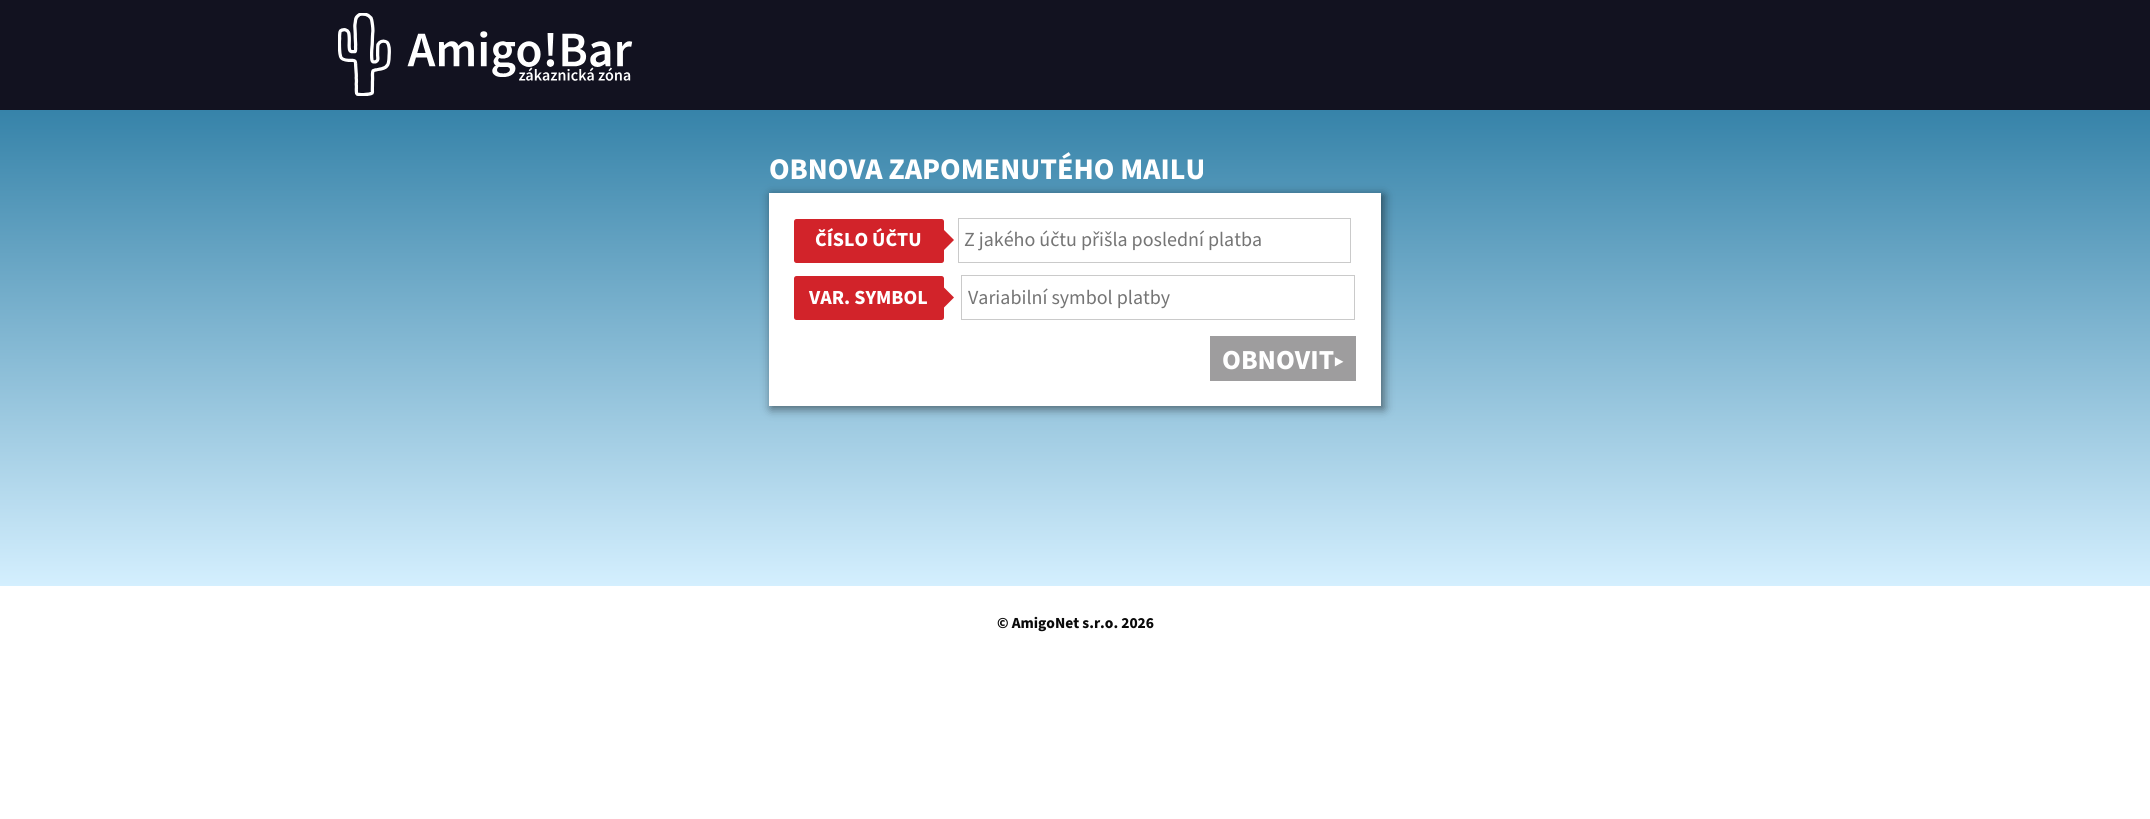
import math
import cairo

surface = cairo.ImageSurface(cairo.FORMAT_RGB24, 2150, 819)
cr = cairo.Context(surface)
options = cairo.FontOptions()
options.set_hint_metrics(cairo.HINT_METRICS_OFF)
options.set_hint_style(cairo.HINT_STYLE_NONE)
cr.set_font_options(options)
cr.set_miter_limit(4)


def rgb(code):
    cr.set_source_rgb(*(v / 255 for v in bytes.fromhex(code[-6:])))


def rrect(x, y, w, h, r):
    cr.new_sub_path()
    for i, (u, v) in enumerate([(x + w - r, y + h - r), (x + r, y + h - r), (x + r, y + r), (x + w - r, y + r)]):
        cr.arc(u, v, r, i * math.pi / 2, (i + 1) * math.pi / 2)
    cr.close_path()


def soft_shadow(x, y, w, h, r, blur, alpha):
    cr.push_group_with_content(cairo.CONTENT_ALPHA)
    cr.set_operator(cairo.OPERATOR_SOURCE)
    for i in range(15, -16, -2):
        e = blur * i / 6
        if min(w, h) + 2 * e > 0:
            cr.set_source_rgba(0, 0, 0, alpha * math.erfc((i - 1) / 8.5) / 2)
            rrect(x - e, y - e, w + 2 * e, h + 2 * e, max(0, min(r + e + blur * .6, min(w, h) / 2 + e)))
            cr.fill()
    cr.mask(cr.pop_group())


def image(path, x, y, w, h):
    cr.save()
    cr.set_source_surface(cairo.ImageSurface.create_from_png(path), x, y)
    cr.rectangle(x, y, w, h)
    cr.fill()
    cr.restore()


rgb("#ffffff")
cr.paint()
rgb("#121220")
cr.rectangle(0, 0, 2150, 110)
cr.fill()
image("img/1.png", 338, 13, 295, 83)
gradient = cairo.LinearGradient(1075, 110, 1075, 586)
gradient.add_color_stop_rgba(0, 0.212, 0.514, 0.663, 1)
gradient.add_color_stop_rgba(1, 0.831, 0.937, 0.996, 1)
cr.set_source(gradient)
cr.rectangle(0, 110, 2150, 476)
cr.fill()
rgb("#000000")
soft_shadow(771, 195, 613, 214, 0, 5, 0.5)
rgb("#ffffff")
cr.rectangle(769, 193, 612, 213)
cr.fill()
rgb("#d2232a")
rrect(794, 219, 150, 44, 2.5)
cr.fill()
cr.new_path()
cr.move_to(944, 250)
cr.line_to(944, 230)
cr.line_to(954, 240)
cr.close_path()
cr.fill()
cr.rectangle(958.5, 218.5, 392, 44)
rgb("#cacaca")
cr.set_line_width(1)
cr.stroke()
rgb("#d2232a")
rrect(794, 276, 150, 44, 2.5)
cr.fill()
cr.new_path()
cr.move_to(944, 307.5)
cr.line_to(944, 287.5)
cr.line_to(954, 297.5)
cr.close_path()
cr.fill()
cr.rectangle(961.5, 275.5, 393, 44)
rgb("#cacaca")
cr.stroke()
rgb("#9e9d9e")
cr.rectangle(1210, 336, 146, 45)
cr.fill()
cr.select_font_face("Source Sans Pro", cairo.FONT_SLANT_NORMAL, cairo.FONT_WEIGHT_BOLD)
cr.set_font_size(30)
rgb("#ffffff")
cr.move_to(769, 179)
cr.show_text("OBNOVA ZAPOMENUTÉHO MAILU")
cr.set_font_size(20)
cr.move_to(815, 246)
cr.show_text("ČÍSLO ÚČTU")
cr.select_font_face("Source Sans Pro")
rgb("#757575")
cr.move_to(964, 246)
cr.show_text("Z jakého účtu přišla poslední platba")
cr.select_font_face("Source Sans Pro", cairo.FONT_SLANT_NORMAL, cairo.FONT_WEIGHT_BOLD)
rgb("#ffffff")
cr.move_to(809, 304)
cr.show_text("VAR. SYMBOL")
cr.select_font_face("Source Sans Pro")
rgb("#757575")
cr.move_to(968, 304)
cr.show_text("Variabilní symbol platby")
cr.select_font_face("Source Sans Pro", cairo.FONT_SLANT_NORMAL, cairo.FONT_WEIGHT_BOLD)
cr.set_font_size(27.5)
rgb("#ffffff")
cr.move_to(1222, 369)
cr.show_text("OBNOVIT▸")
cr.set_font_size(15.4)
rgb("#0a0a0a")
cr.move_to(997, 628)
cr.show_text("© AmigoNet s.r.o. 2026")
surface.write_to_png("page.png")
